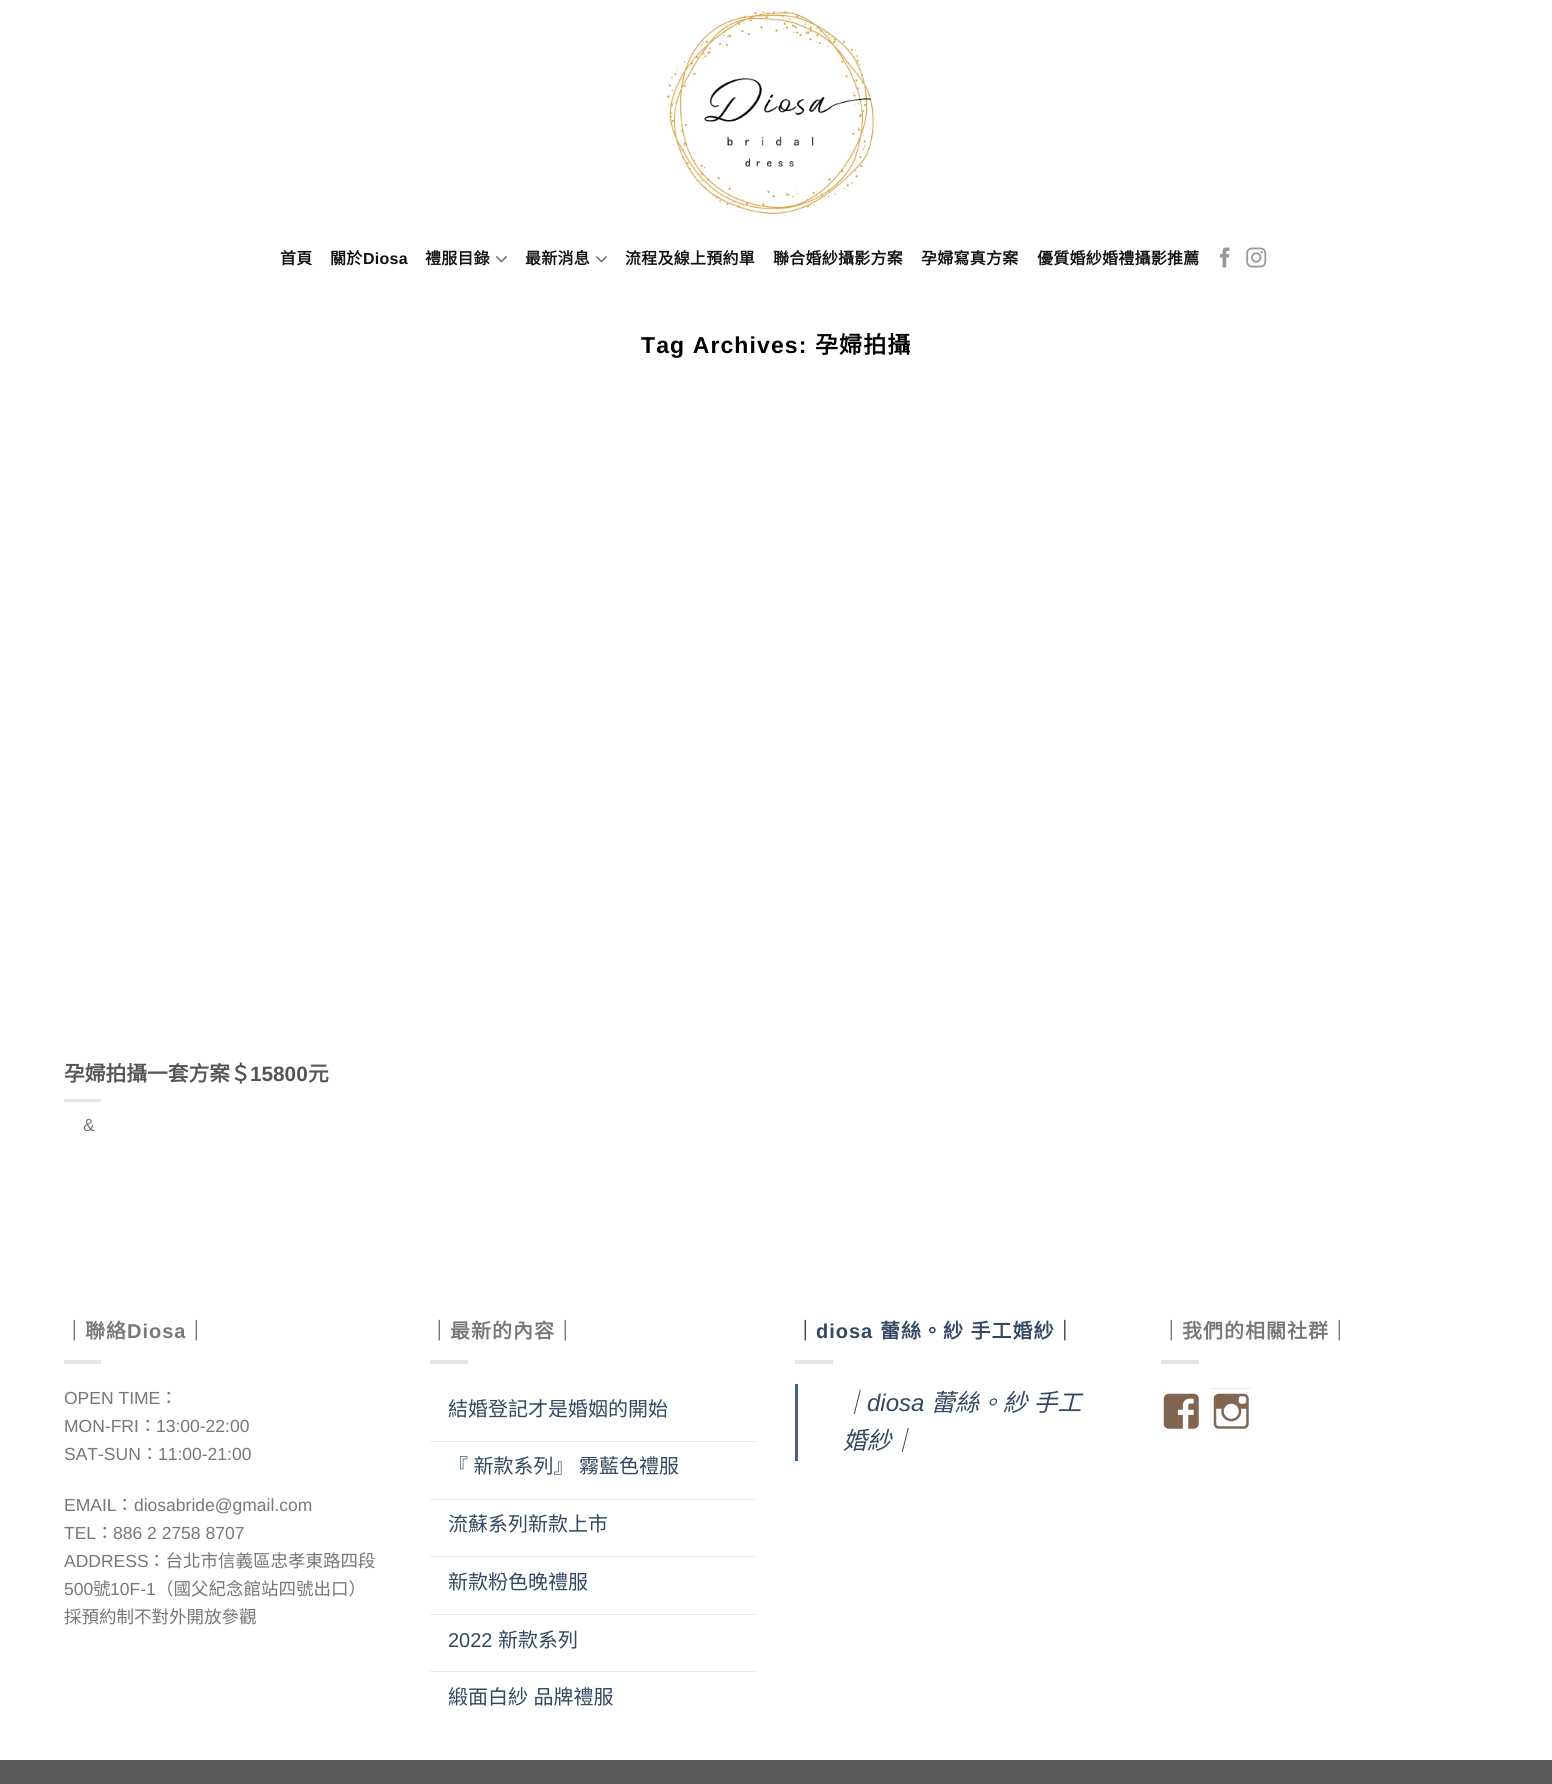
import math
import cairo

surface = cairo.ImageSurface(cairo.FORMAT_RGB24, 1552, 1784)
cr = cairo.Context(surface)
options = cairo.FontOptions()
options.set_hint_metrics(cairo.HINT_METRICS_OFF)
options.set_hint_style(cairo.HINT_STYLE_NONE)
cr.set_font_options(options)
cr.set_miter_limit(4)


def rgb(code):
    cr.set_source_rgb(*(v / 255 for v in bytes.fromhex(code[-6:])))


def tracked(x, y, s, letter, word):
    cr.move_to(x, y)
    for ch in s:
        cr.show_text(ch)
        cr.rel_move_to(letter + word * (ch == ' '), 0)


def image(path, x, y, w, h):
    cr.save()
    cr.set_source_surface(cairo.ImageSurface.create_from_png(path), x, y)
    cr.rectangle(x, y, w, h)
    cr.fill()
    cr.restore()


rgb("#ffffff")
cr.paint()
image("img/1.png", 667, 11, 207, 203)
image("img/2.png", 496, 256, 11, 7)
image("img/2.png", 596, 256, 11, 7)
image("img/3.png", 1220, 247, 10, 21)
image("img/4.png", 1246, 247, 21, 21)
for x, y, w, h, color in [
    (64, 1099, 37, 3, "#e6e6e6"),
    (64, 1360, 37, 4, "#e6e6e6"),
    (430, 1360, 38, 4, "#e6e6e6"),
    (430, 1441, 328, 1, "#ececec"),
    (430, 1499, 328, 1, "#ececec"),
    (430, 1556, 328, 1, "#ececec"),
    (430, 1614, 328, 1, "#ececec"),
    (430, 1671, 328, 1, "#ececec"),
    (795, 1360, 38, 4, "#e6e6e6"),
    (795, 1384, 3, 77, "#446084"),
    (1161, 1360, 38, 4, "#e6e6e6"),
]:
    rgb(color)
    cr.rectangle(x, y, w, h)
    cr.fill()
image("img/5.png", 1163, 1393, 36, 36)
rgb("#ececec")
cr.rectangle(1211, 1388, 40, 1)
cr.fill()
image("img/6.png", 1213, 1393, 36, 36)
rgb("#5b5b5b")
cr.rectangle(0, 1760, 1552, 24)
cr.fill()
cr.select_font_face("Noto Sans CJK TC", cairo.FONT_SLANT_NORMAL, cairo.FONT_WEIGHT_BOLD)
cr.set_font_size(16)
rgb("#111111")
tracked(280, 264, "首頁", 0.25, 0)
tracked(330, 264, "關於", 0.25, 0)
cr.select_font_face("Liberation Sans", cairo.FONT_SLANT_NORMAL, cairo.FONT_WEIGHT_BOLD)
tracked(363, 264, "Diosa", 0.25, 0)
cr.select_font_face("Noto Sans CJK TC", cairo.FONT_SLANT_NORMAL, cairo.FONT_WEIGHT_BOLD)
for x, y, s in [
    (425, 264, "禮服目錄"),
    (525, 264, "最新消息"),
    (625, 264, "流程及線上預約單"),
    (773, 264, "聯合婚紗攝影方案"),
    (921, 264, "孕婦寫真方案"),
    (1037, 264, "優質婚紗婚禮攝影推薦"),
]:
    tracked(x, y, s, 0.25, 0)
cr.select_font_face("Liberation Sans", cairo.FONT_SLANT_NORMAL, cairo.FONT_WEIGHT_BOLD)
cr.set_font_size(23)
rgb("#000000")
tracked(641, 353, "Tag Archives:", 1.1, 0)
cr.select_font_face("Noto Sans CJK TC", cairo.FONT_SLANT_NORMAL, cairo.FONT_WEIGHT_BOLD)
tracked(815, 353, "孕婦拍攝", 1.1, 0)
cr.set_font_size(20.75)
rgb("#555555")
cr.move_to(64, 1081)
cr.show_text("孕婦拍攝一套方案＄")
cr.select_font_face("Liberation Sans", cairo.FONT_SLANT_NORMAL, cairo.FONT_WEIGHT_BOLD)
cr.move_to(250, 1081)
cr.show_text("15800")
cr.select_font_face("Noto Sans CJK TC", cairo.FONT_SLANT_NORMAL, cairo.FONT_WEIGHT_BOLD)
cr.move_to(308, 1081)
cr.show_text("元")
cr.select_font_face("Liberation Sans")
cr.set_font_size(17.5)
rgb("#777777")
cr.move_to(83, 1131)
cr.show_text("&")
cr.select_font_face("Noto Sans CJK TC", cairo.FONT_SLANT_NORMAL, cairo.FONT_WEIGHT_BOLD)
cr.set_font_size(20)
tracked(64, 1338, "｜聯絡", 1, 0)
cr.select_font_face("Liberation Sans", cairo.FONT_SLANT_NORMAL, cairo.FONT_WEIGHT_BOLD)
tracked(127, 1338, "Diosa", 1, 0)
cr.select_font_face("Noto Sans CJK TC", cairo.FONT_SLANT_NORMAL, cairo.FONT_WEIGHT_BOLD)
tracked(186, 1338, "｜", 1, 0)
cr.select_font_face("Liberation Sans")
cr.set_font_size(17.5)
cr.move_to(64, 1404)
cr.show_text("OPEN TIME")
cr.select_font_face("Noto Sans CJK TC")
cr.move_to(160, 1404)
cr.show_text("：")
cr.select_font_face("Liberation Sans")
cr.move_to(64, 1432)
cr.show_text("MON-FRI")
cr.select_font_face("Noto Sans CJK TC")
cr.move_to(139, 1432)
cr.show_text("：")
cr.select_font_face("Liberation Sans")
cr.move_to(156, 1432)
cr.show_text("13:00-22:00")
cr.move_to(64, 1460)
cr.show_text("SAT-SUN")
cr.select_font_face("Noto Sans CJK TC")
cr.move_to(141, 1460)
cr.show_text("：")
cr.select_font_face("Liberation Sans")
cr.move_to(158, 1460)
cr.show_text("11:00-21:00")
cr.move_to(64, 1511)
cr.show_text("EMAIL")
cr.select_font_face("Noto Sans CJK TC")
cr.move_to(116, 1511)
cr.show_text("：")
cr.select_font_face("Liberation Sans")
cr.move_to(134, 1511)
cr.show_text("diosabride@gmail.com")
cr.move_to(64, 1539)
cr.show_text("TEL")
cr.select_font_face("Noto Sans CJK TC")
cr.move_to(96, 1539)
cr.show_text("：")
cr.select_font_face("Liberation Sans")
cr.move_to(113, 1539)
cr.show_text("886 2 2758 8707")
cr.move_to(64, 1567)
cr.show_text("ADDRESS")
cr.select_font_face("Noto Sans CJK TC")
cr.move_to(148, 1567)
cr.show_text("：台北市信義區忠孝東路四段")
cr.select_font_face("Liberation Sans")
cr.move_to(64, 1595)
cr.show_text("500")
cr.select_font_face("Noto Sans CJK TC")
cr.move_to(93, 1595)
cr.show_text("號")
cr.select_font_face("Liberation Sans")
cr.move_to(110, 1595)
cr.show_text("10F-1")
cr.select_font_face("Noto Sans CJK TC")
cr.move_to(156, 1595)
cr.show_text("（國父紀念館站四號出口）")
cr.move_to(64, 1623)
cr.show_text("採預約制不對外開放參觀")
cr.select_font_face("Noto Sans CJK TC", cairo.FONT_SLANT_NORMAL, cairo.FONT_WEIGHT_BOLD)
cr.set_font_size(20)
tracked(429, 1338, "｜最新的內容｜", 1, 0)
cr.select_font_face("Noto Sans CJK TC")
rgb("#334862")
cr.move_to(448, 1416)
cr.show_text("結婚登記才是婚姻的開始")
tracked(448, 1473, "『 新款系列』 霧藍色禮服", 0, 1)
cr.move_to(448, 1531)
cr.show_text("流蘇系列新款上市")
cr.move_to(448, 1589)
cr.show_text("新款粉色晚禮服")
cr.select_font_face("Liberation Sans")
cr.move_to(448, 1647)
cr.show_text("2022")
cr.select_font_face("Noto Sans CJK TC")
cr.move_to(498, 1647)
cr.show_text("新款系列")
tracked(448, 1704, "緞面白紗 品牌禮服", 0, 1)
cr.select_font_face("Noto Sans CJK TC", cairo.FONT_SLANT_NORMAL, cairo.FONT_WEIGHT_BOLD)
tracked(795, 1338, "｜", 1, 0)
cr.select_font_face("Liberation Sans", cairo.FONT_SLANT_NORMAL, cairo.FONT_WEIGHT_BOLD)
tracked(816, 1338, "diosa", 1, 0)
cr.select_font_face("Noto Sans CJK TC", cairo.FONT_SLANT_NORMAL, cairo.FONT_WEIGHT_BOLD)
tracked(880, 1338, "蕾絲。紗 手工婚紗｜", 1, 1)
cr.select_font_face("Noto Sans CJK TC", cairo.FONT_SLANT_ITALIC)
cr.set_font_size(24)
cr.move_to(843, 1411)
cr.show_text("｜")
cr.select_font_face("Liberation Sans", cairo.FONT_SLANT_ITALIC)
cr.move_to(867, 1411)
cr.show_text("diosa")
cr.select_font_face("Noto Sans CJK TC", cairo.FONT_SLANT_ITALIC)
tracked(931, 1411, "蕾絲。紗 手工", 0, 1)
cr.move_to(843, 1449)
cr.show_text("婚紗｜")
cr.select_font_face("Noto Sans CJK TC", cairo.FONT_SLANT_NORMAL, cairo.FONT_WEIGHT_BOLD)
cr.set_font_size(20)
rgb("#777777")
tracked(1161, 1338, "｜我們的相關社群｜", 1, 0)
surface.write_to_png("page.png")
